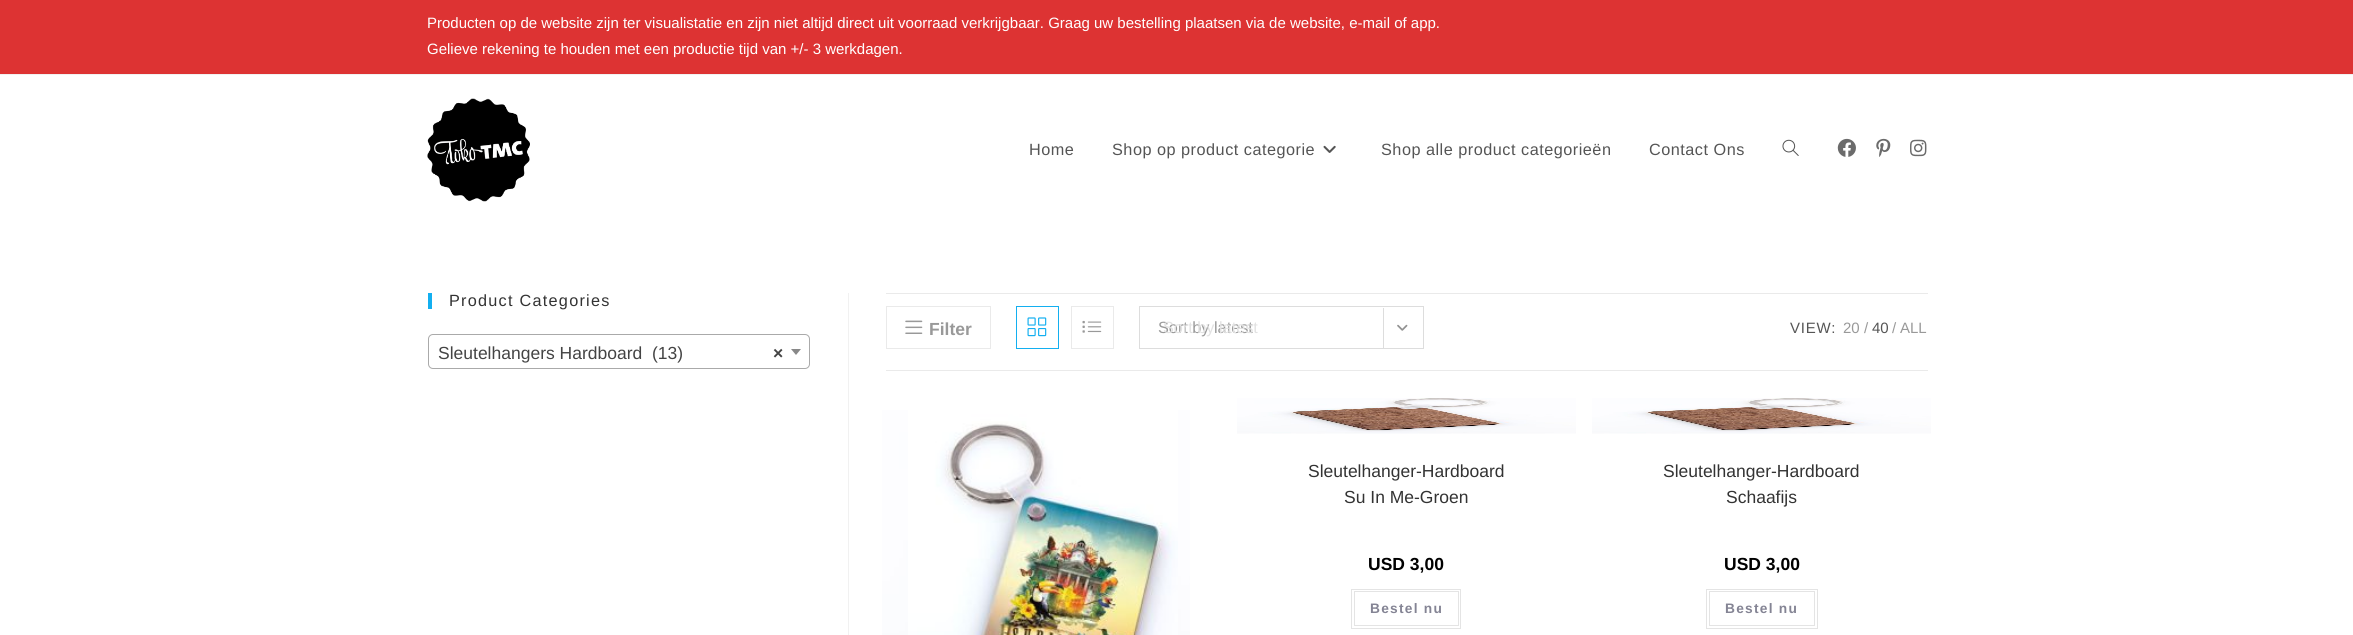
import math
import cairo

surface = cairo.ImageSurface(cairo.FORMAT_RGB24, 2353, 635)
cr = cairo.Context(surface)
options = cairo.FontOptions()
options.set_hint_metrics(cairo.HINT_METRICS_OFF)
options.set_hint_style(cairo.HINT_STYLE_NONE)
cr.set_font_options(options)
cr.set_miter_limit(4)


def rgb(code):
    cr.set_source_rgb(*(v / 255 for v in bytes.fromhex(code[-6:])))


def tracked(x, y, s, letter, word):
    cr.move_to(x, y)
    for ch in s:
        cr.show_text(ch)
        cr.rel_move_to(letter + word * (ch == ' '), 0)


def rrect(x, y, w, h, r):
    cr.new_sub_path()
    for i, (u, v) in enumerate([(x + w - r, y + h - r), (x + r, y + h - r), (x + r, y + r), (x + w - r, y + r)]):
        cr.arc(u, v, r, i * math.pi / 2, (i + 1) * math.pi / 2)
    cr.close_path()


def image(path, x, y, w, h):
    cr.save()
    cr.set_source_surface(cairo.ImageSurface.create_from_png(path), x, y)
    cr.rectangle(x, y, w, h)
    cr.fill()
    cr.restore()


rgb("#ffffff")
cr.paint()
rgb("#dd3333")
cr.rectangle(0, 0, 2353, 74)
cr.fill()
rgb("#f1f1f1")
cr.rectangle(0, 74, 2353, 1)
cr.fill()
image("img/1.png", 427, 98, 103, 104)
image("img/2.png", 1323, 145, 13, 8)
image("img/3.png", 1782, 139, 17, 17)
image("img/4.png", 1837, 138, 19, 19)
image("img/5.png", 1876, 138, 15, 19)
image("img/6.png", 1910, 139, 17, 18)
rgb("#13aff0")
cr.rectangle(428, 293, 4, 16)
cr.fill()
rrect(428.5, 334.5, 381, 34, 4.5)
rgb("#aaaaaa")
cr.set_line_width(1)
cr.stroke()
rgb("#888888")
cr.new_path()
cr.move_to(791, 349)
cr.line_to(801, 349)
cr.line_to(796, 355)
cr.close_path()
cr.fill()
for x, y, w, h, color in [
    (848, 293, 1, 342, "#f1f1f1"),
    (886, 293, 1042, 1, "#eaeaea"),
    (886, 370, 1042, 1, "#eaeaea"),
]:
    rgb(color)
    cr.rectangle(x, y, w, h)
    cr.fill()
cr.rectangle(886.5, 306.5, 104, 42)
cr.stroke()
image("img/7.png", 905, 320, 18, 14)
cr.rectangle(1016.5, 306.5, 42, 42)
rgb("#13aff0")
cr.stroke()
image("img/8.png", 1027, 317, 20, 20)
cr.rectangle(1071.5, 306.5, 42, 42)
rgb("#eaeaea")
cr.stroke()
image("img/9.png", 1082, 320, 20, 13)
cr.rectangle(1139.5, 306.5, 284, 42)
rgb("#dddddd")
cr.stroke()
cr.rectangle(1383, 308, 1, 40)
cr.fill()
image("img/10.png", 1397, 324, 11, 7)
image("img/11.png", 882, 410, 308, 225)
image("img/12.png", 908, 410, 270, 225)
image("img/13.png", 1237, 398, 339, 36)
cr.rectangle(1351.5, 589.5, 109, 39)
rgb("#e4e4e4")
cr.stroke()
cr.rectangle(1354.5, 591.5, 104, 34)
cr.stroke()
image("img/13.png", 1592, 398, 339, 36)
cr.rectangle(1706.5, 589.5, 111, 39)
cr.stroke()
cr.rectangle(1709.5, 591.5, 105, 34)
cr.stroke()
cr.select_font_face("Liberation Sans")
cr.set_font_size(15)
rgb("#ffffff")
cr.move_to(427, 28)
cr.show_text("Producten op de website zijn ter visualistatie en zijn niet altijd direct uit voorraad verkrijgbaar. Graag uw bestelling plaatsen via de website, e-mail of app.")
cr.move_to(427, 54)
cr.show_text("Gelieve rekening te houden met een productie tijd van +/- 3 werkdagen.")
cr.set_font_size(16.25)
rgb("#555555")
for x, y, s in [
    (1029, 155, "Home"),
    (1112, 155, "Shop op product categorie"),
    (1381, 155, "Shop alle product categorieën"),
    (1649, 155, "Contact Ons"),
]:
    tracked(x, y, s, 0.5, 0)
rgb("#333333")
tracked(449, 306, "Product Categories", 1.25, 0)
cr.set_font_size(17.5)
rgb("#444444")
cr.move_to(438, 359)
cr.show_text("Sleutelhangers Hardboard  (13)")
cr.select_font_face("Liberation Sans", cairo.FONT_SLANT_NORMAL, cairo.FONT_WEIGHT_BOLD)
cr.move_to(773, 359)
cr.show_text("×")
rgb("#999999")
cr.move_to(929, 335)
cr.show_text("Filter")
cr.select_font_face("Liberation Sans")
cr.set_font_size(16.25)
cr.move_to(1158, 333)
cr.show_text("Sort by latest")
rgb("#e2e2e2")
cr.move_to(1163, 333)
cr.show_text("Sort by latest")
cr.set_font_size(15)
rgb("#555555")
tracked(1790, 333, "VIEW:", 0.75, 0)
rgb("#999999")
cr.move_to(1843, 333)
cr.show_text("20")
cr.move_to(1864, 333)
cr.show_text("/")
rgb("#555555")
cr.move_to(1872, 333)
cr.show_text("40")
rgb("#999999")
cr.move_to(1892, 333)
cr.show_text("/")
cr.move_to(1900, 333)
cr.show_text("ALL")
cr.set_font_size(17.5)
rgb("#333333")
cr.move_to(1308, 477)
cr.show_text("Sleutelhanger-Hardboard")
cr.move_to(1344, 503)
cr.show_text("Su In Me-Groen")
cr.select_font_face("Liberation Sans", cairo.FONT_SLANT_NORMAL, cairo.FONT_WEIGHT_BOLD)
rgb("#000000")
cr.move_to(1368, 570)
cr.show_text("USD 3,00")
cr.set_font_size(13.75)
rgb("#848494")
tracked(1370, 613, "Bestel nu", 1.25, 0)
cr.select_font_face("Liberation Sans")
cr.set_font_size(17.5)
rgb("#333333")
cr.move_to(1663, 477)
cr.show_text("Sleutelhanger-Hardboard")
cr.move_to(1726, 503)
cr.show_text("Schaafijs")
cr.select_font_face("Liberation Sans", cairo.FONT_SLANT_NORMAL, cairo.FONT_WEIGHT_BOLD)
rgb("#000000")
cr.move_to(1724, 570)
cr.show_text("USD 3,00")
cr.set_font_size(13.75)
rgb("#848494")
tracked(1725, 613, "Bestel nu", 1.25, 0)
surface.write_to_png("page.png")
